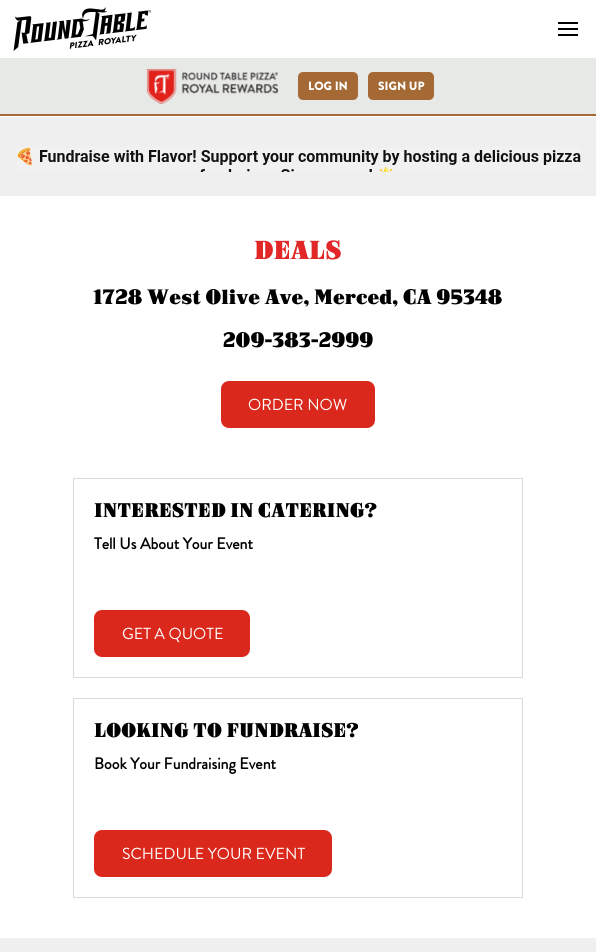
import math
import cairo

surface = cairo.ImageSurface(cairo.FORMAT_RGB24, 596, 952)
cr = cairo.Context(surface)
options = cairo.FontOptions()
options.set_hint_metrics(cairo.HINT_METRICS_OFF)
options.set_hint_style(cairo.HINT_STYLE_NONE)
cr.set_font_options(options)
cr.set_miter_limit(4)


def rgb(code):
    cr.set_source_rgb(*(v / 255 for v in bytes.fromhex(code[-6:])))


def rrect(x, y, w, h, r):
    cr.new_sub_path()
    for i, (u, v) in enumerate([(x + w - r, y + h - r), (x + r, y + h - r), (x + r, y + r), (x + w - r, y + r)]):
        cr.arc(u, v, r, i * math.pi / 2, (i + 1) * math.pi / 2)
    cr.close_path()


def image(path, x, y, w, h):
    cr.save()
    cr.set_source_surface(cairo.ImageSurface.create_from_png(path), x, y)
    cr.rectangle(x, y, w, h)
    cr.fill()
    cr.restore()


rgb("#ffffff")
cr.paint()
image("img/1.png", 13, 7, 139, 44)
for x, y, w, h, color in [
    (558, 28, 20, 2, "#000000"),
    (558, 22, 20, 2, "#000000"),
    (558, 34, 20, 2, "#000000"),
    (0, 58, 596, 56, "#e7e9e6"),
    (0, 114, 596, 2, "#a46934"),
]:
    rgb(color)
    cr.rectangle(x, y, w, h)
    cr.fill()
image("img/2.png", 146, 68, 132, 36)
rrect(298, 72, 60, 28, 5)
cr.fill()
rrect(368, 72, 66, 28, 5)
cr.fill()
rgb("#efefef")
cr.rectangle(0, 117, 596, 79)
cr.fill()
image("img/3.png", 17, 147, 564, 25)
rgb("#da291c")
rrect(221, 381, 154, 47, 8)
cr.fill()
cr.rectangle(73.5, 478.5, 449, 199)
rgb("#d9d9d6")
cr.set_line_width(1)
cr.stroke()
rgb("#da291c")
rrect(94, 610, 156, 47, 8)
cr.fill()
cr.rectangle(73.5, 698.5, 449, 199)
rgb("#d9d9d6")
cr.stroke()
rgb("#da291c")
rrect(94, 830, 238, 47, 8)
cr.fill()
rgb("#efefef")
cr.rectangle(0, 938, 596, 14)
cr.fill()
cr.select_font_face("Brandon Grotesque Black")
cr.set_font_size(12)
rgb("#ffffff")
cr.move_to(308, 90)
cr.show_text("LOG IN")
cr.move_to(378, 90)
cr.show_text("SIGN UP")
cr.select_font_face("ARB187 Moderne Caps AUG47")
cr.set_font_size(25)
rgb("#e12727")
cr.move_to(254, 259)
cr.show_text("DEALS")
cr.set_font_size(20)
rgb("#000000")
cr.move_to(93, 304)
cr.show_text("1728 West Olive Ave, Merced, CA 95348")
cr.move_to(223, 347)
cr.show_text("209-383-2999")
cr.select_font_face("Brandon Grotesque")
cr.set_font_size(16)
rgb("#ffffff")
cr.move_to(248, 410)
cr.show_text("ORDER NOW")
cr.select_font_face("ARB187 Moderne Caps AUG47")
cr.set_font_size(19)
rgb("#000000")
cr.move_to(94, 517)
cr.show_text("INTERESTED IN CATERING?")
cr.select_font_face("Brandon Grotesque", cairo.FONT_SLANT_NORMAL, cairo.FONT_WEIGHT_BOLD)
cr.set_font_size(16)
cr.move_to(94, 549)
cr.show_text("Tell Us About Your Event")
cr.select_font_face("Brandon Grotesque")
rgb("#ffffff")
cr.move_to(122, 639)
cr.show_text("GET A QUOTE")
cr.select_font_face("ARB187 Moderne Caps AUG47")
cr.set_font_size(19)
rgb("#000000")
cr.move_to(94, 737)
cr.show_text("LOOKING TO FUNDRAISE?")
cr.select_font_face("Brandon Grotesque", cairo.FONT_SLANT_NORMAL, cairo.FONT_WEIGHT_BOLD)
cr.set_font_size(16)
cr.move_to(94, 769)
cr.show_text("Book Your Fundraising Event")
cr.select_font_face("Brandon Grotesque")
rgb("#ffffff")
cr.move_to(122, 859)
cr.show_text("SCHEDULE YOUR EVENT")
surface.write_to_png("page.png")
